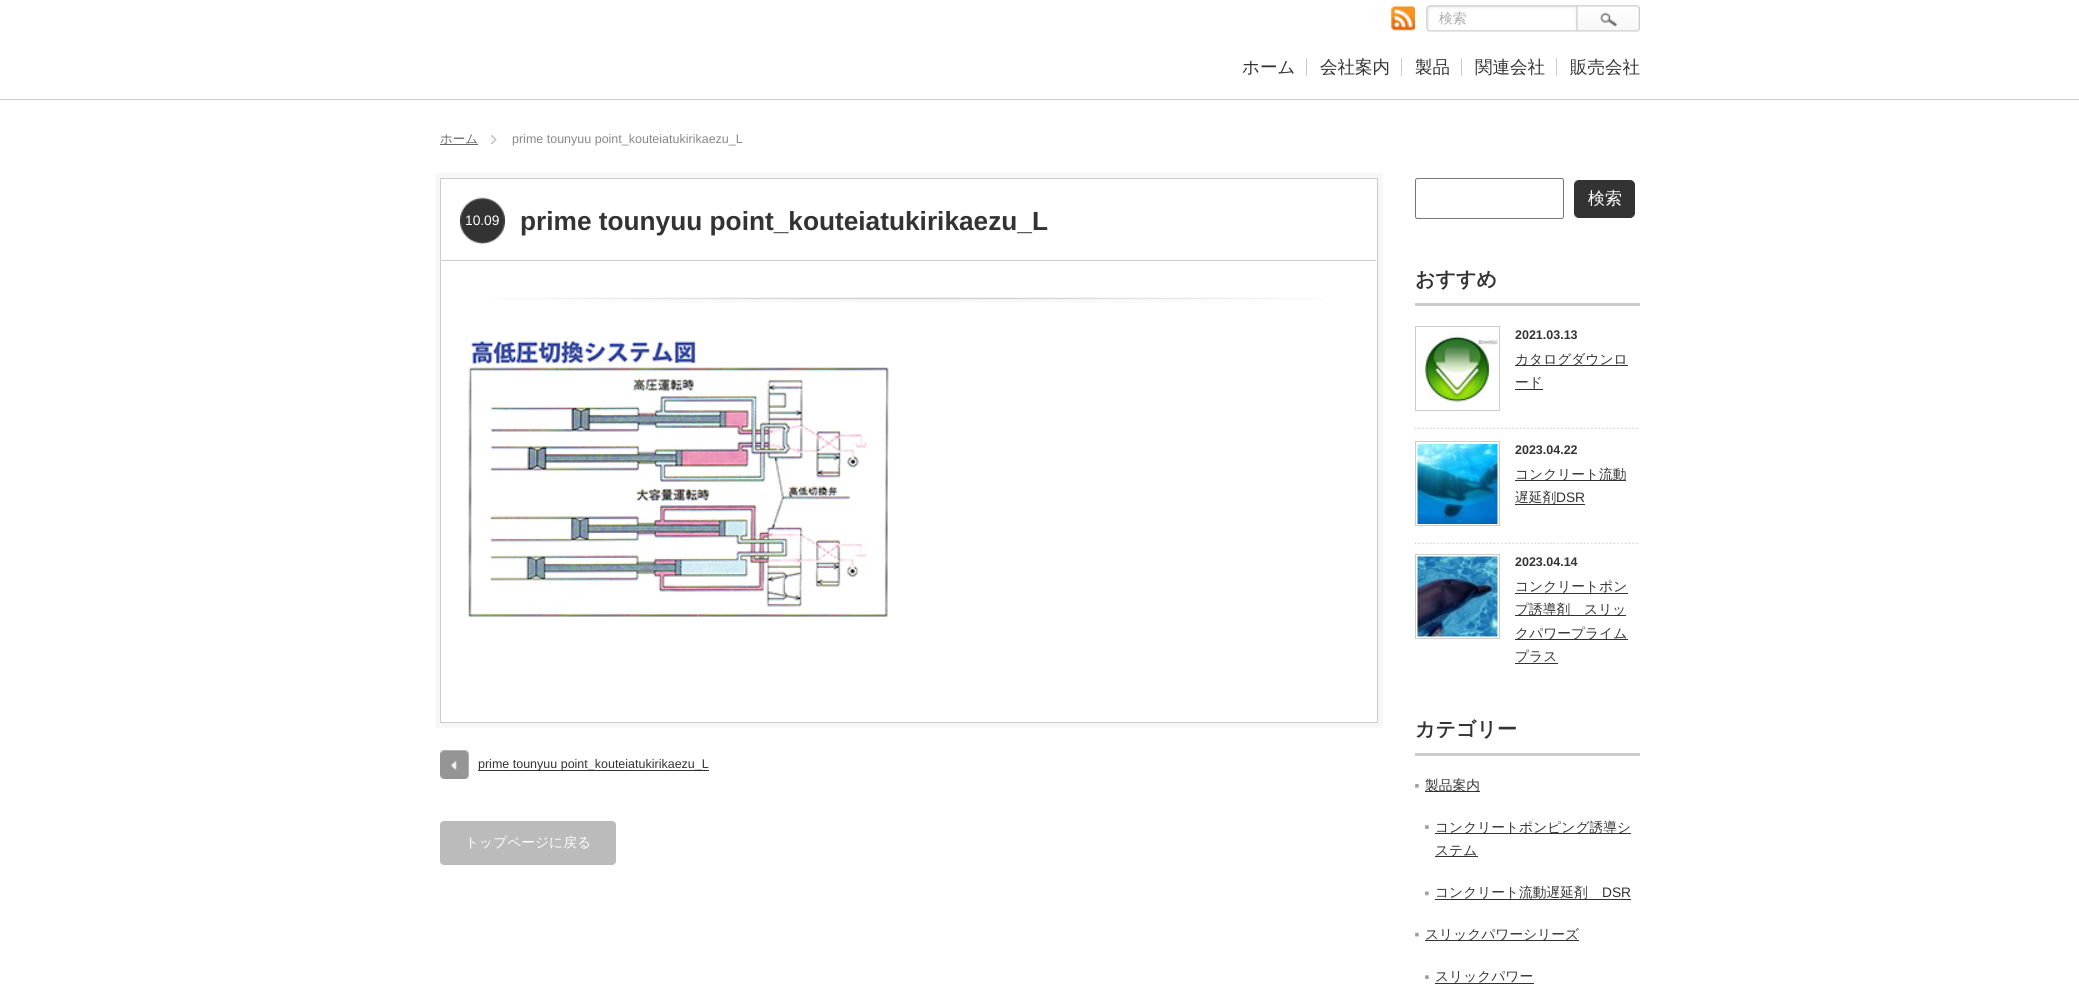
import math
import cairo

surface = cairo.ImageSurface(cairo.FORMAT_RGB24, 2079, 991)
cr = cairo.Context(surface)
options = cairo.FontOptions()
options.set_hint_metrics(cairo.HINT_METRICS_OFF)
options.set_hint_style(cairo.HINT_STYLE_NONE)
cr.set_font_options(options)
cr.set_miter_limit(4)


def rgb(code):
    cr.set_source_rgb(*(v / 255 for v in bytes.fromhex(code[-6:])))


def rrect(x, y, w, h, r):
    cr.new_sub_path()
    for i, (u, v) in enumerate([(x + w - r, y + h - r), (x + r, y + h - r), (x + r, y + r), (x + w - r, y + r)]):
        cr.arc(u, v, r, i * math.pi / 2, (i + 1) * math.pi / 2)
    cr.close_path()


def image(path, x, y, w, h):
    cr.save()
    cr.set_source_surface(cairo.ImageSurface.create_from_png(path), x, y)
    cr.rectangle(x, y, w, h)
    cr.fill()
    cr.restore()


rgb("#ffffff")
cr.paint()
rgb("#cccccc")
cr.rectangle(0, 99, 2079, 1)
cr.fill()
image("img/1.png", 1391, 6, 24, 25)
image("img/2.png", 1426, 5, 151, 27)
image("img/3.png", 1576, 5, 64, 27)
for x, y, w, h, color in [
    (1306, 58, 1, 18, "#cccccc"),
    (1401, 58, 1, 18, "#cccccc"),
    (1461, 58, 1, 18, "#cccccc"),
    (1556, 58, 1, 18, "#cccccc"),
]:
    rgb(color)
    cr.rectangle(x, y, w, h)
    cr.fill()
image("img/4.png", 491, 135, 6, 9)
rgb("#666666")
cr.rectangle(440, 144, 38, 1)
cr.fill()
cr.rectangle(437.5, 175.5, 943, 550)
rgb("#f7f7f7")
cr.set_line_width(5)
cr.stroke()
cr.rectangle(440.5, 178.5, 937, 544)
rgb("#cccccc")
cr.set_line_width(1)
cr.stroke()
cr.rectangle(441, 260, 935, 1)
cr.fill()
image("img/5.png", 460, 197, 45, 47)
image("img/6.png", 495, 297, 829, 6)
image("img/7.png", 468, 340, 421, 278)
image("img/8.png", 440, 750, 29, 29)
rgb("#333333")
cr.rectangle(478, 770, 231, 1)
cr.fill()
rgb("#bbbbbb")
rrect(440, 821, 176, 44, 4)
cr.fill()
rrect(1415.5, 178.5, 148, 40, 2)
rgb("#767676")
cr.stroke()
rgb("#333333")
rrect(1574.5, 180.5, 60, 37, 4.5)
cr.fill_preserve()
cr.stroke()
rgb("#cccccc")
cr.rectangle(1415, 303, 225, 3)
cr.fill()
image("img/9.png", 1415, 427, 225, 2)
cr.rectangle(1415.5, 326.5, 84, 84)
cr.stroke()
image("img/10.png", 1418, 329, 80, 80)
rgb("#333333")
cr.rectangle(1515, 365, 113, 1)
cr.fill()
cr.rectangle(1515, 389, 28, 1)
cr.fill()
image("img/9.png", 1415, 542, 225, 2)
cr.rectangle(1415.5, 441.5, 84, 84)
rgb("#cccccc")
cr.stroke()
image("img/11.png", 1417, 444, 81, 80)
rgb("#333333")
cr.rectangle(1515, 480, 111, 1)
cr.fill()
cr.rectangle(1515, 504, 70, 1)
cr.fill()
cr.rectangle(1415.5, 554.5, 84, 84)
rgb("#cccccc")
cr.stroke()
image("img/12.png", 1417, 556, 81, 81)
for x, y, w, h, color in [
    (1515, 593, 113, 1, "#333333"),
    (1515, 615, 111, 1, "#333333"),
    (1515, 639, 113, 1, "#333333"),
    (1515, 663, 43, 1, "#333333"),
    (1415, 753, 225, 3, "#cccccc"),
]:
    rgb(color)
    cr.rectangle(x, y, w, h)
    cr.fill()
image("img/13.png", 1415, 784, 4, 4)
rgb("#333333")
cr.rectangle(1425, 791, 55, 1)
cr.fill()
image("img/14.png", 1425, 825, 4, 4)
cr.rectangle(1435, 833, 196, 1)
cr.fill()
cr.rectangle(1435, 856, 43, 1)
cr.fill()
image("img/15.png", 1425, 891, 4, 5)
cr.rectangle(1435, 899, 196, 1)
cr.fill()
image("img/16.png", 1415, 932, 4, 5)
cr.rectangle(1425, 940, 154, 1)
cr.fill()
image("img/14.png", 1425, 975, 4, 4)
cr.rectangle(1435, 983, 99, 1)
cr.fill()
cr.select_font_face("WenQuanYi Zen Hei Medium")
cr.set_font_size(13.75)
rgb("#aaaaaa")
cr.move_to(1439, 23)
cr.show_text("検索")
cr.set_font_size(17.5)
rgb("#333333")
for x, y, s in [
    (1242, 73, "ホーム"),
    (1320, 73, "会社案内"),
    (1415, 73, "製品"),
    (1475, 73, "関連会社"),
    (1570, 73, "販売会社"),
]:
    cr.move_to(x, y)
    cr.show_text(s)
cr.set_font_size(12.5)
rgb("#666666")
cr.move_to(440, 143)
cr.show_text("ホーム")
cr.select_font_face("Liberation Sans")
rgb("#888888")
cr.move_to(512, 143)
cr.show_text("prime tounyuu point_kouteiatukirikaezu_L")
cr.set_font_size(13.75)
rgb("#ffffff")
cr.move_to(465, 225)
cr.show_text("10.09")
cr.select_font_face("Liberation Sans", cairo.FONT_SLANT_NORMAL, cairo.FONT_WEIGHT_BOLD)
cr.set_font_size(26.25)
rgb("#333333")
cr.move_to(520, 230)
cr.show_text("prime tounyuu point_kouteiatukirikaezu_L")
cr.select_font_face("Liberation Sans")
cr.set_font_size(12.5)
cr.move_to(478, 768)
cr.show_text("prime tounyuu point_kouteiatukirikaezu_L")
cr.select_font_face("WenQuanYi Zen Hei Medium")
cr.set_font_size(13.75)
rgb("#ffffff")
cr.move_to(465, 847)
cr.show_text("トップページに戻る")
cr.set_font_size(17)
cr.move_to(1588, 204)
cr.show_text("検索")
cr.select_font_face("WenQuanYi Zen Hei", cairo.FONT_SLANT_NORMAL, cairo.FONT_WEIGHT_BOLD)
cr.set_font_size(20)
rgb("#333333")
cr.move_to(1415, 286)
cr.show_text("おすすめ")
cr.select_font_face("Liberation Sans", cairo.FONT_SLANT_NORMAL, cairo.FONT_WEIGHT_BOLD)
cr.set_font_size(12.5)
cr.move_to(1515, 339)
cr.show_text("2021.03.13")
cr.select_font_face("WenQuanYi Zen Hei Medium")
cr.set_font_size(13.75)
cr.move_to(1515, 364)
cr.show_text("カタログダウンロ")
cr.move_to(1515, 387)
cr.show_text("ード")
cr.select_font_face("Liberation Sans", cairo.FONT_SLANT_NORMAL, cairo.FONT_WEIGHT_BOLD)
cr.set_font_size(12.5)
cr.move_to(1515, 454)
cr.show_text("2023.04.22")
cr.select_font_face("WenQuanYi Zen Hei Medium")
cr.set_font_size(13.75)
cr.move_to(1515, 479)
cr.show_text("コンクリート流動")
cr.move_to(1515, 502)
cr.show_text("遅延剤")
cr.select_font_face("Liberation Sans")
cr.move_to(1556, 502)
cr.show_text("DSR")
cr.select_font_face("Liberation Sans", cairo.FONT_SLANT_NORMAL, cairo.FONT_WEIGHT_BOLD)
cr.set_font_size(12.5)
cr.move_to(1515, 566)
cr.show_text("2023.04.14")
cr.select_font_face("WenQuanYi Zen Hei Medium")
cr.set_font_size(13.75)
for x, y, s in [
    (1515, 591, "コンクリートポン"),
    (1515, 614, "プ誘導剤　スリッ"),
    (1515, 638, "クパワープライム"),
    (1515, 661, "プラス"),
]:
    cr.move_to(x, y)
    cr.show_text(s)
cr.select_font_face("WenQuanYi Zen Hei", cairo.FONT_SLANT_NORMAL, cairo.FONT_WEIGHT_BOLD)
cr.set_font_size(20)
cr.move_to(1415, 736)
cr.show_text("カテゴリー")
cr.select_font_face("WenQuanYi Zen Hei Medium")
cr.set_font_size(13.75)
for x, y, s in [
    (1425, 790, "製品案内"),
    (1435, 832, "コンクリートポンピング誘導シ"),
    (1435, 855, "ステム"),
    (1435, 897, "コンクリート流動遅延剤"),
]:
    cr.move_to(x, y)
    cr.show_text(s)
cr.select_font_face("Liberation Sans")
cr.move_to(1602, 897)
cr.show_text("DSR")
cr.select_font_face("WenQuanYi Zen Hei Medium")
cr.move_to(1425, 939)
cr.show_text("スリックパワーシリーズ")
cr.move_to(1435, 981)
cr.show_text("スリックパワー")
surface.write_to_png("page.png")
